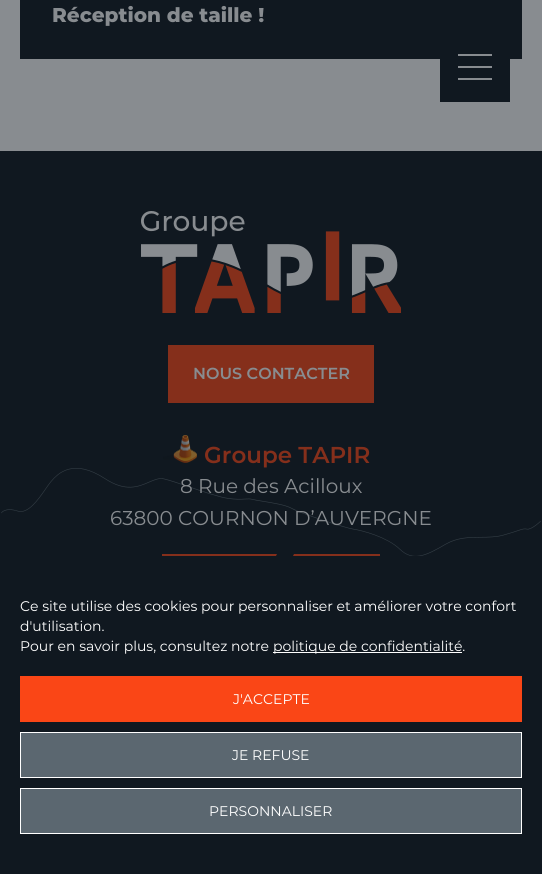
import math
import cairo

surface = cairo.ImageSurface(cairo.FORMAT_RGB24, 542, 874)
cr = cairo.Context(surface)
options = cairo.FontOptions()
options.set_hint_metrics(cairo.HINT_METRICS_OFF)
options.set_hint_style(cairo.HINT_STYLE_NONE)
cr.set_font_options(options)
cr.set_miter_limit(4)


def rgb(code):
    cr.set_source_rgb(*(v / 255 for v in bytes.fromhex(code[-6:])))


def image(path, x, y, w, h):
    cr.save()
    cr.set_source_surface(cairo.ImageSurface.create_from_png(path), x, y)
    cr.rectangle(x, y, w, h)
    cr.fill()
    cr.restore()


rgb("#888c90")
cr.paint()
for x, y, w, h, color in [
    (20, 0, 502, 59, "#101820"),
    (440, 59, 70, 43, "#101820"),
    (458, 54, 34, 2, "#888c90"),
    (458, 66, 34, 2, "#888c90"),
    (458, 78, 34, 2, "#888c90"),
    (0, 151, 542, 405, "#101820"),
]:
    rgb(color)
    cr.rectangle(x, y, w, h)
    cr.fill()
image("img/1.png", 1, 468, 540, 88)
image("img/2.png", 141, 211, 260, 102)
rgb("#852f1b")
cr.rectangle(168, 345, 206, 58)
cr.fill()
image("img/3.png", 163, 435, 34, 28)
cr.new_path()
cr.move_to(248, 611)
cr.line_to(162, 611)
cr.line_to(162, 554)
cr.line_to(277, 554)
cr.close_path()
cr.fill()
cr.new_path()
cr.move_to(294, 554)
cr.line_to(380, 554)
cr.line_to(380, 611)
cr.line_to(265, 611)
cr.close_path()
cr.fill()
for x, y, w, h, color in [
    (0, 556, 542, 318, "#101820"),
    (273, 652, 189, 1, "#ffffff"),
    (20, 676, 502, 46, "#fa4616"),
]:
    rgb(color)
    cr.rectangle(x, y, w, h)
    cr.fill()
rgb("#5b6770")
cr.rectangle(20.5, 732.5, 501, 45)
cr.fill_preserve()
rgb("#ffffff")
cr.set_line_width(1)
cr.stroke()
rgb("#5b6770")
cr.rectangle(20.5, 788.5, 501, 45)
cr.fill_preserve()
rgb("#ffffff")
cr.stroke()
cr.select_font_face("Montserrat ExtraBold")
cr.set_font_size(20)
rgb("#888c90")
cr.move_to(52, 22)
cr.show_text("Réception de taille !")
cr.select_font_face("Montserrat SemiBold")
cr.set_font_size(16)
cr.move_to(193, 379)
cr.show_text("NOUS CONTACTER")
cr.set_font_size(23)
rgb("#852f1b")
cr.move_to(204, 463)
cr.show_text("Groupe TAPIR")
cr.select_font_face("Montserrat")
cr.set_font_size(20)
rgb("#888c90")
cr.move_to(180, 493)
cr.show_text("8 Rue des Acilloux")
cr.move_to(110, 525)
cr.show_text("63800 COURNON D’AUVERGNE")
cr.set_font_size(14)
rgb("#ffffff")
for x, y, s in [
    (20, 611, "Ce site utilise des cookies pour personnaliser et améliorer votre confort"),
    (20, 631, "d'utilisation."),
    (20, 651, "Pour en savoir plus, consultez notre"),
    (273, 651, "politique de confidentialité."),
    (233, 704, "J'ACCEPTE"),
    (232, 760, "JE REFUSE"),
    (209, 816, "PERSONNALISER"),
]:
    cr.move_to(x, y)
    cr.show_text(s)
surface.write_to_png("page.png")
